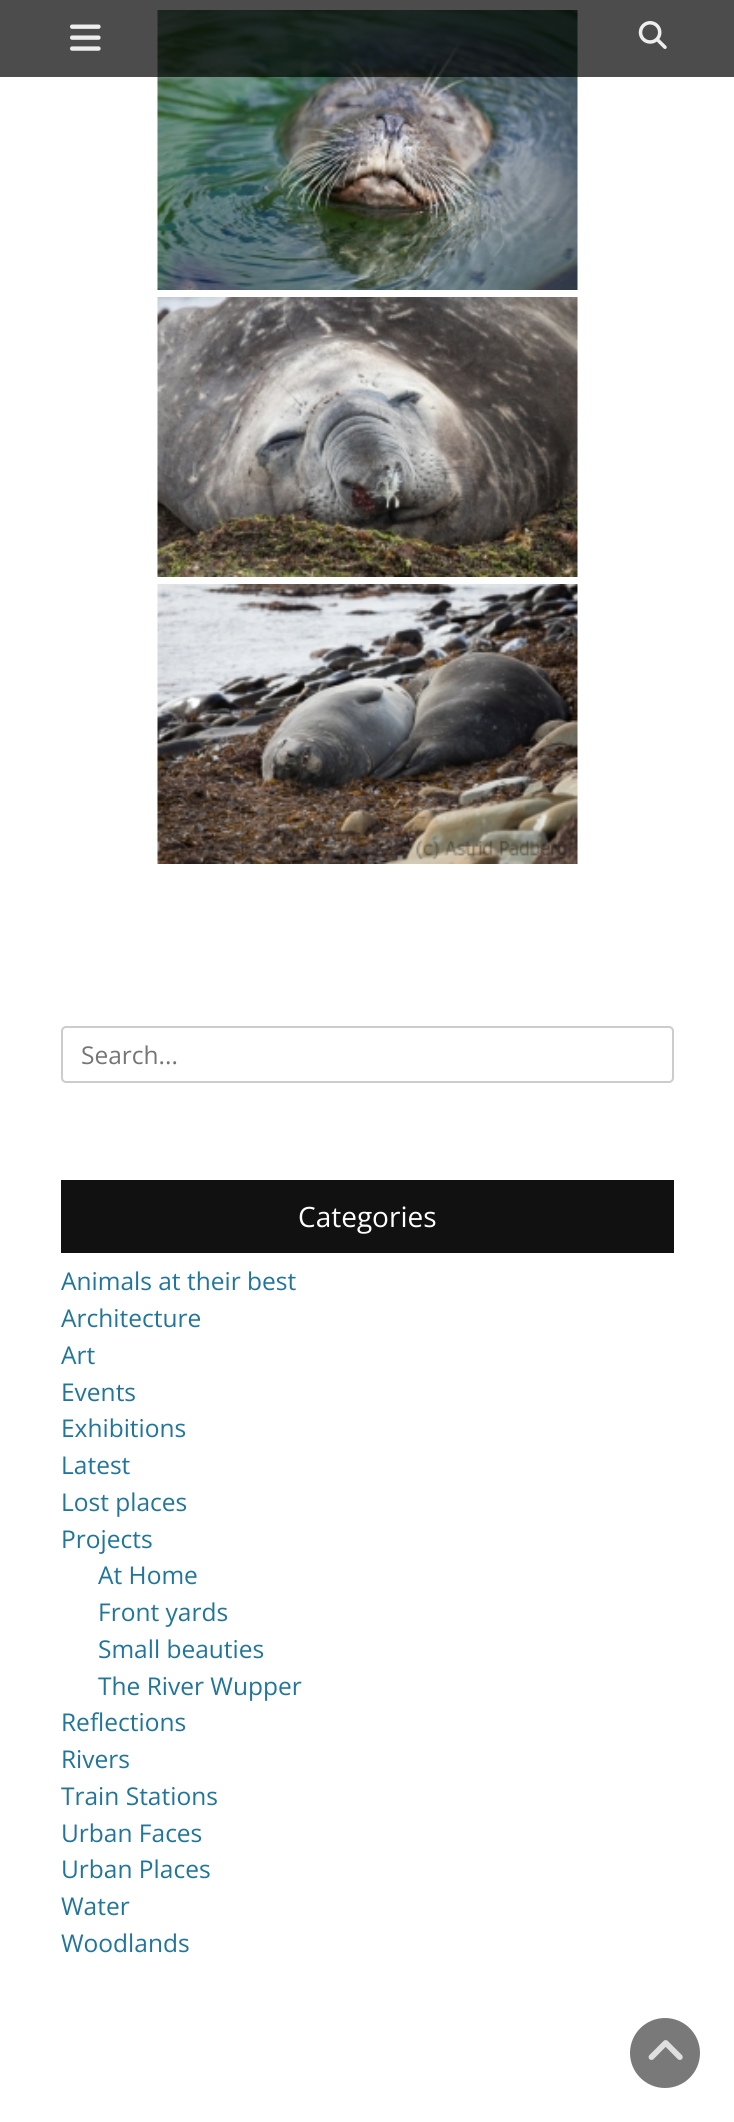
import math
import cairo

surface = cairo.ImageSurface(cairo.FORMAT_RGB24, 734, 2122)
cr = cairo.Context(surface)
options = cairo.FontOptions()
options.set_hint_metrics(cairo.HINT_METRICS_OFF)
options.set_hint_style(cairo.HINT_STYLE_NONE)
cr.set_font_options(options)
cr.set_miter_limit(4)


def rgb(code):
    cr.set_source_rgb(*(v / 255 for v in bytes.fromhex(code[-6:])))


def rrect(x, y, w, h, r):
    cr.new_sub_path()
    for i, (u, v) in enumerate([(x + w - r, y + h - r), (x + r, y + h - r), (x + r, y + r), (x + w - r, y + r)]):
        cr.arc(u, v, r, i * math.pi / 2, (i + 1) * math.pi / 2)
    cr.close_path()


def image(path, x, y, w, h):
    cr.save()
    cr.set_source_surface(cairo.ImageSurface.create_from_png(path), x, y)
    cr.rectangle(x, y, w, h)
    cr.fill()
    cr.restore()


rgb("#ffffff")
cr.paint()
image("img/3.png", 157, 10, 421, 280)
cr.set_source_rgba(0, 0, 0, 0.7)
cr.rectangle(0, 0, 734, 77)
cr.fill()
image("img/1.png", 70, 24, 31, 27)
image("img/2.png", 638, 21, 29, 28)
image("img/4.png", 157, 297, 421, 280)
image("img/5.png", 157, 584, 421, 280)
rrect(62, 1027, 611, 55, 4)
rgb("#cccccc")
cr.stroke()
rgb("#111111")
cr.rectangle(61, 1180, 613, 73)
cr.fill()
rgb("#797979")
cr.arc(665, 2053, 35, 0, 2 * math.pi)
cr.fill()
image("img/6.png", 648, 2040, 35, 20)
cr.select_font_face("Open Sans")
cr.set_font_size(24.5)
rgb("#757575")
cr.move_to(81, 1064)
cr.show_text("Search...")
cr.set_font_size(28)
rgb("#ffffff")
cr.move_to(298, 1227)
cr.show_text("Categories")
cr.set_font_size(24.5)
rgb("#21759b")
for x, y, s in [
    (61, 1290, "Animals at their best"),
    (61, 1327, "Architecture"),
    (61, 1364, "Art"),
    (61, 1401, "Events"),
    (61, 1437, "Exhibitions"),
    (61, 1474, "Latest"),
    (61, 1511, "Lost places"),
    (61, 1548, "Projects"),
    (98, 1584, "At Home"),
    (98, 1621, "Front yards"),
    (98, 1658, "Small beauties"),
    (98, 1695, "The River Wupper"),
    (61, 1731, "Reflections"),
    (61, 1768, "Rivers"),
    (61, 1805, "Train Stations"),
    (61, 1842, "Urban Faces"),
    (61, 1878, "Urban Places"),
    (61, 1915, "Water"),
    (61, 1952, "Woodlands"),
]:
    cr.move_to(x, y)
    cr.show_text(s)
surface.write_to_png("page.png")
